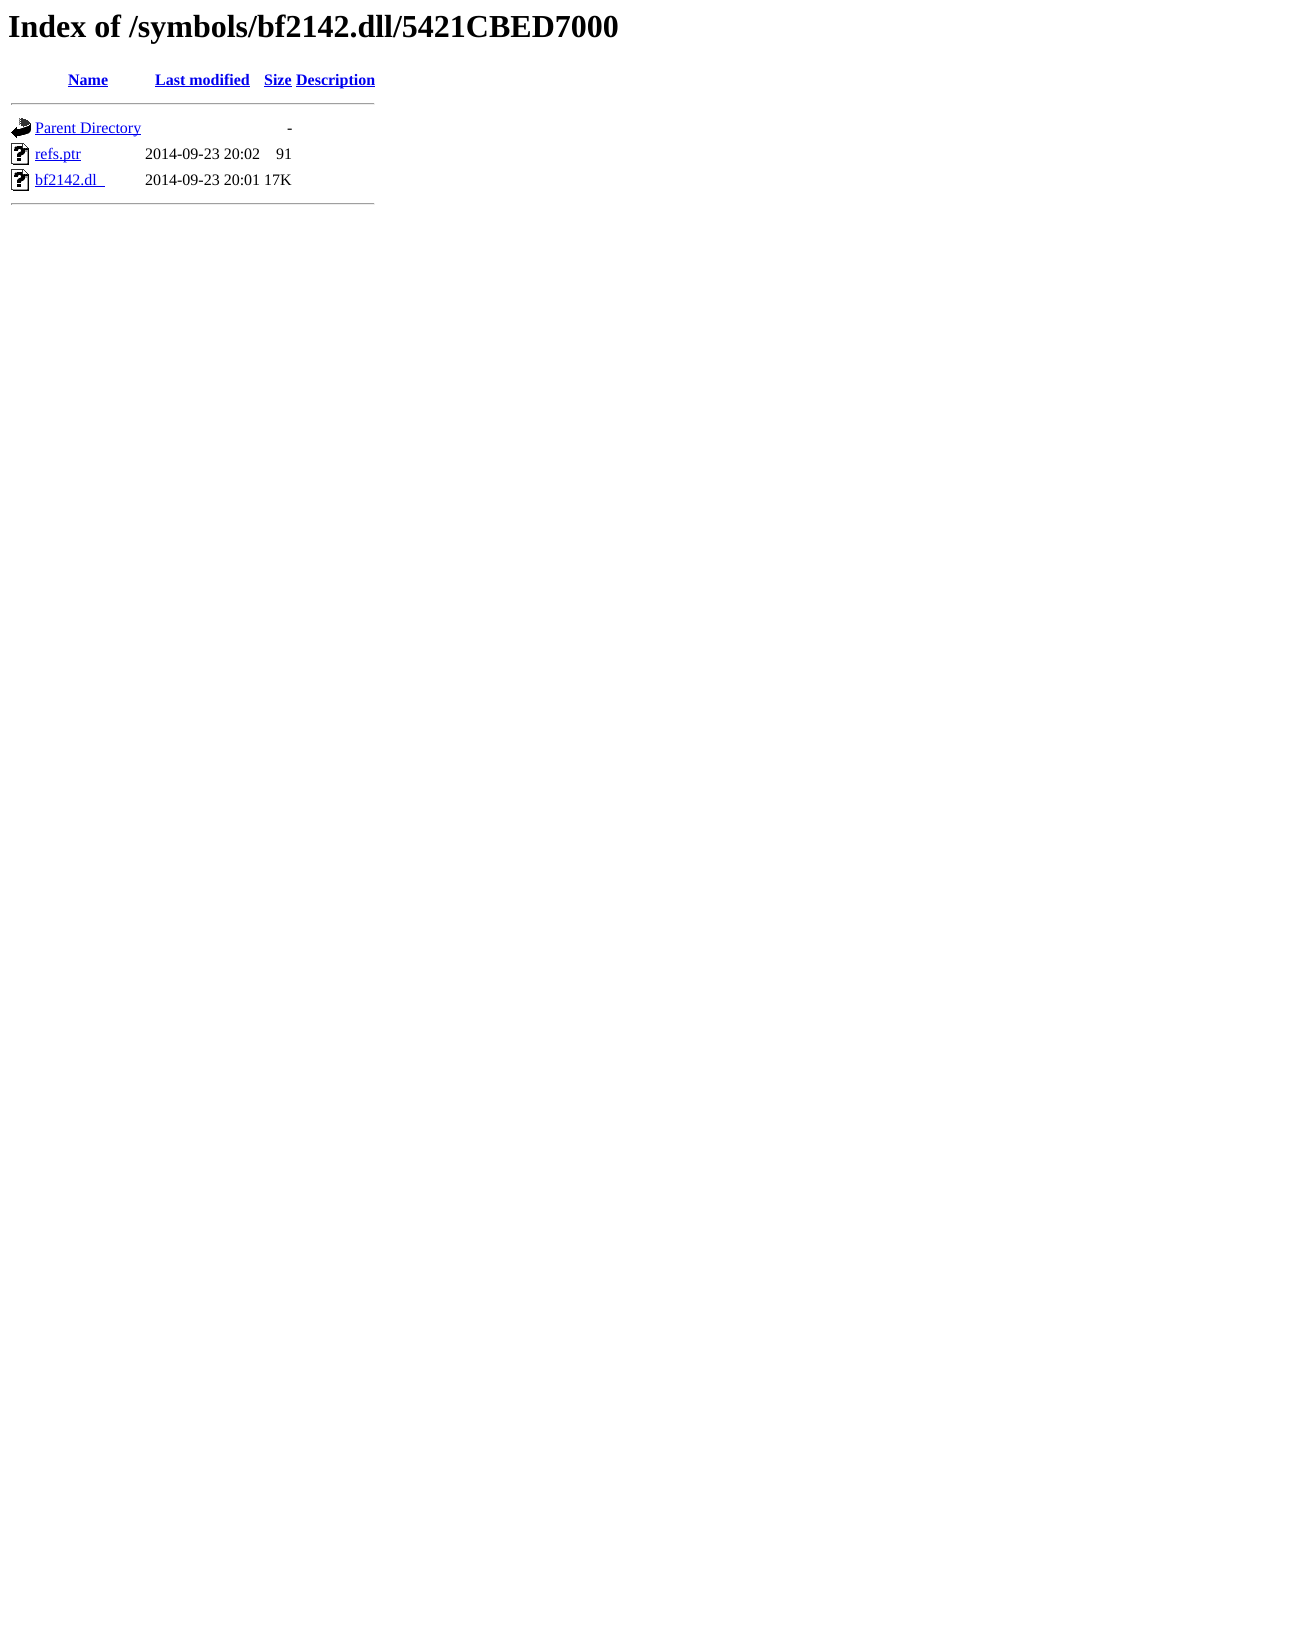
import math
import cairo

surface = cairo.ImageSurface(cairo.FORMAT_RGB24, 1311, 1639)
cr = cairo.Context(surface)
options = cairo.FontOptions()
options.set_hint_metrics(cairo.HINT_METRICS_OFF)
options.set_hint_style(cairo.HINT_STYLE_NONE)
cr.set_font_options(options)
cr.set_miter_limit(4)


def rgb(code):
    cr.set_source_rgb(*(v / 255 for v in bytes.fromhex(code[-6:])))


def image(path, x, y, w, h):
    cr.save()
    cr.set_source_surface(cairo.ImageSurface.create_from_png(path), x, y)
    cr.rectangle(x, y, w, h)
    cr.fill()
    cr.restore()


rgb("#ffffff")
cr.paint()
for x, y, w, h, color in [
    (68, 86, 40, 1, "#0000ee"),
    (155, 86, 95, 1, "#0000ee"),
    (264, 86, 28, 1, "#0000ee"),
    (296, 86, 79, 1, "#0000ee"),
    (11, 103, 364, 1, "#9f9f9f"),
    (374, 103, 1, 2, "#eeeeee"),
    (11, 104, 364, 1, "#eeeeee"),
    (11, 103, 1, 2, "#9f9f9f"),
]:
    rgb(color)
    cr.rectangle(x, y, w, h)
    cr.fill()
image("img/1.png", 11, 118, 20, 20)
rgb("#0000ee")
cr.rectangle(35, 134, 106, 1)
cr.fill()
image("img/2.png", 11, 143, 18, 22)
cr.rectangle(35, 160, 46, 1)
cr.fill()
image("img/2.png", 11, 169, 18, 22)
for x, y, w, h, color in [
    (35, 186, 70, 1, "#0000ee"),
    (11, 203, 364, 1, "#9f9f9f"),
    (374, 203, 1, 2, "#eeeeee"),
    (11, 204, 364, 1, "#eeeeee"),
    (11, 203, 1, 2, "#9f9f9f"),
]:
    rgb(color)
    cr.rectangle(x, y, w, h)
    cr.fill()
cr.select_font_face("Liberation Serif", cairo.FONT_SLANT_NORMAL, cairo.FONT_WEIGHT_BOLD)
cr.set_font_size(32)
rgb("#000000")
cr.move_to(8, 37)
cr.show_text("Index of /symbols/bf2142.dll/5421CBED7000")
cr.set_font_size(16)
rgb("#0000ee")
for x, y, s in [
    (68, 85, "Name"),
    (155, 85, "Last modified"),
    (264, 85, "Size"),
    (296, 85, "Description"),
]:
    cr.move_to(x, y)
    cr.show_text(s)
cr.select_font_face("Liberation Serif")
cr.move_to(35, 133)
cr.show_text("Parent Directory")
rgb("#000000")
cr.move_to(287, 133)
cr.show_text("-")
rgb("#0000ee")
cr.move_to(35, 159)
cr.show_text("refs.ptr")
rgb("#000000")
cr.move_to(145, 159)
cr.show_text("2014-09-23 20:02")
cr.move_to(276, 159)
cr.show_text("91")
rgb("#0000ee")
cr.move_to(35, 185)
cr.show_text("bf2142.dl")
rgb("#000000")
cr.move_to(145, 185)
cr.show_text("2014-09-23 20:01 17K")
surface.write_to_png("page.png")
